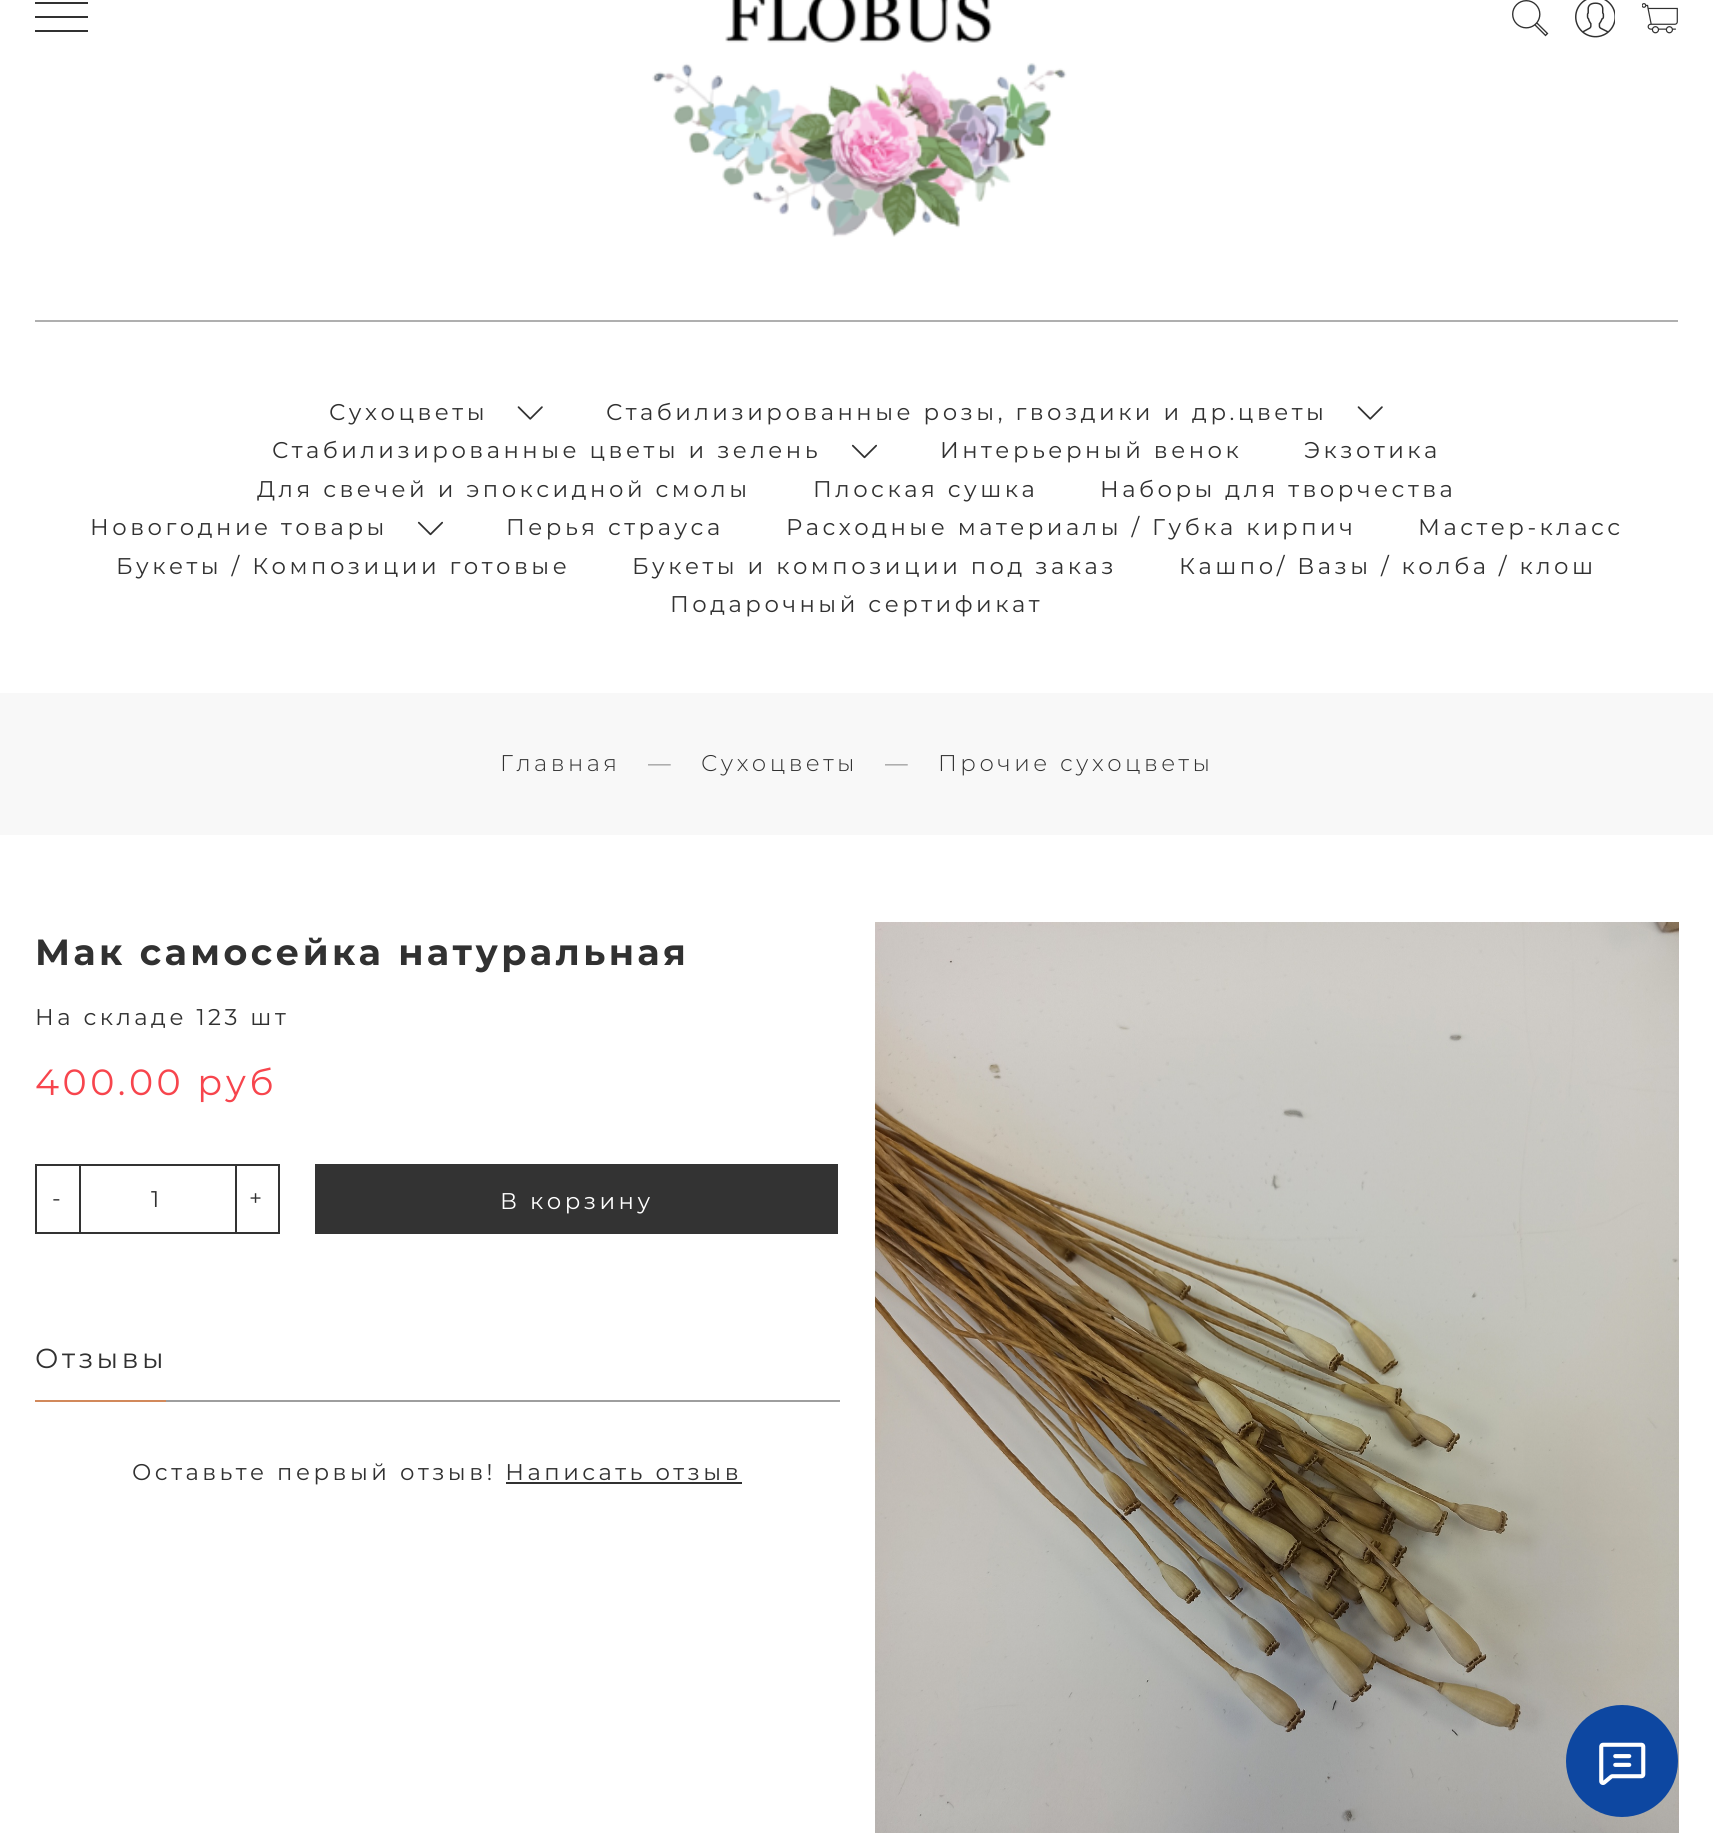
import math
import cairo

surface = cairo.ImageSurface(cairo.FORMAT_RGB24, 1713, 1833)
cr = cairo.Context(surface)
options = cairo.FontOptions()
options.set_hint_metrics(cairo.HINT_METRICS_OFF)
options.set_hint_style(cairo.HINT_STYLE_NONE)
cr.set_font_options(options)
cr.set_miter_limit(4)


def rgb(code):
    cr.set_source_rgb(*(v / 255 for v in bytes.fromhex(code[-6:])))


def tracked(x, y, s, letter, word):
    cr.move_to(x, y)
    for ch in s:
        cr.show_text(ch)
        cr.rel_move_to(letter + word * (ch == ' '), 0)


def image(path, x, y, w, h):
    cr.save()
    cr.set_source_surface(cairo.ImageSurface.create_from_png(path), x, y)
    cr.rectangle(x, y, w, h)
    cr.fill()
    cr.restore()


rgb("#ffffff")
cr.paint()
for x, y, w, h, color in [
    (35, 2, 53, 2, "#313131"),
    (35, 16, 53, 2, "#313131"),
    (35, 30, 53, 2, "#313131"),
]:
    rgb(color)
    cr.rectangle(x, y, w, h)
    cr.fill()
image("img/1.png", 652, 0, 415, 237)
image("img/2.png", 1512, 0, 37, 37)
image("img/3.png", 1575, 0, 40, 38)
image("img/4.png", 1642, 3, 36, 31)
rgb("#afafaf")
cr.rectangle(35, 320, 1643, 2)
cr.fill()
image("img/5.png", 517, 406, 26, 14)
image("img/5.png", 1357, 406, 26, 14)
image("img/6.png", 851, 444, 26, 15)
image("img/6.png", 417, 521, 26, 15)
rgb("#f8f8f8")
cr.rectangle(0, 693, 1713, 142)
cr.fill()
cr.rectangle(36, 1165, 243, 68)
rgb("#333333")
cr.stroke()
for x, y, w, h, color in [
    (79, 1166, 2, 66, "#333333"),
    (235, 1166, 2, 66, "#333333"),
    (315, 1164, 523, 70, "#333333"),
    (166, 1400, 674, 2, "#9e9e9e"),
    (35, 1400, 131, 2, "#d2895b"),
    (506, 1482, 236, 2, "#313131"),
]:
    rgb(color)
    cr.rectangle(x, y, w, h)
    cr.fill()
image("img/7.png", 875, 922, 804, 911)
rgb("#0d47a1")
cr.arc(1622, 1761, 56, 0, 2 * math.pi)
cr.fill()
image("img/8.png", 1599, 1742, 47, 43)
cr.select_font_face("Montserrat")
cr.set_font_size(22.75)
rgb("#313131")
for x, y, s in [
    (329, 420, "Сухоцветы"),
    (606, 420, "Стабилизированные розы, гвоздики и др.цветы"),
    (272, 458, "Стабилизированные цветы и зелень"),
    (940, 458, "Интерьерный венок"),
    (1304, 458, "Экзотика"),
    (257, 497, "Для свечей и эпоксидной смолы"),
    (813, 497, "Плоская сушка"),
    (1100, 497, "Наборы для творчества"),
    (90, 535, "Новогодние товары"),
    (506, 535, "Перья страуса"),
    (786, 535, "Расходные материалы / Губка кирпич"),
    (1418, 535, "Мастер-класс"),
    (116, 574, "Букеты / Композиции готовые"),
    (632, 574, "Букеты и композиции под заказ"),
    (1179, 574, "Кашпо/ Вазы / колба / клош"),
    (670, 612, "Подарочный сертификат"),
]:
    tracked(x, y, s, 3.5, 0)
cr.select_font_face("Montserrat Light")
tracked(500, 771, "Главная", 3.5, 0)
rgb("#6d6d6d")
tracked(648, 771, "—", 3.5, 0)
rgb("#313131")
tracked(701, 771, "Сухоцветы", 3.5, 0)
rgb("#6d6d6d")
tracked(885, 771, "—", 3.5, 0)
rgb("#313131")
tracked(938, 771, "Прочие сухоцветы", 3.5, 0)
cr.select_font_face("Montserrat", cairo.FONT_SLANT_NORMAL, cairo.FONT_WEIGHT_BOLD)
cr.set_font_size(36.4)
tracked(35, 965, "Мак самосейка натуральная", 3.5, 0)
cr.select_font_face("Montserrat")
cr.set_font_size(22.75)
tracked(35, 1025, "На складе 123 шт", 3.5, 0)
cr.set_font_size(36.4)
rgb("#f7454d")
tracked(35, 1095, "400.00 руб", 3.5, 0)
cr.set_font_size(22.75)
rgb("#313131")
for x, y, s in [
    (52, 1206, "-"),
    (151, 1207, "1"),
    (249, 1206, "+"),
]:
    tracked(x, y, s, 3.5, 0)
rgb("#ffffff")
tracked(500, 1209, "В корзину", 3.5, 0)
cr.set_font_size(27.5)
rgb("#313131")
tracked(35, 1368, "Отзывы", 3.5, 0)
cr.set_font_size(22.75)
tracked(132, 1480, "Оставьте первый отзыв! Написать отзыв", 3.5, 0)
surface.write_to_png("page.png")
